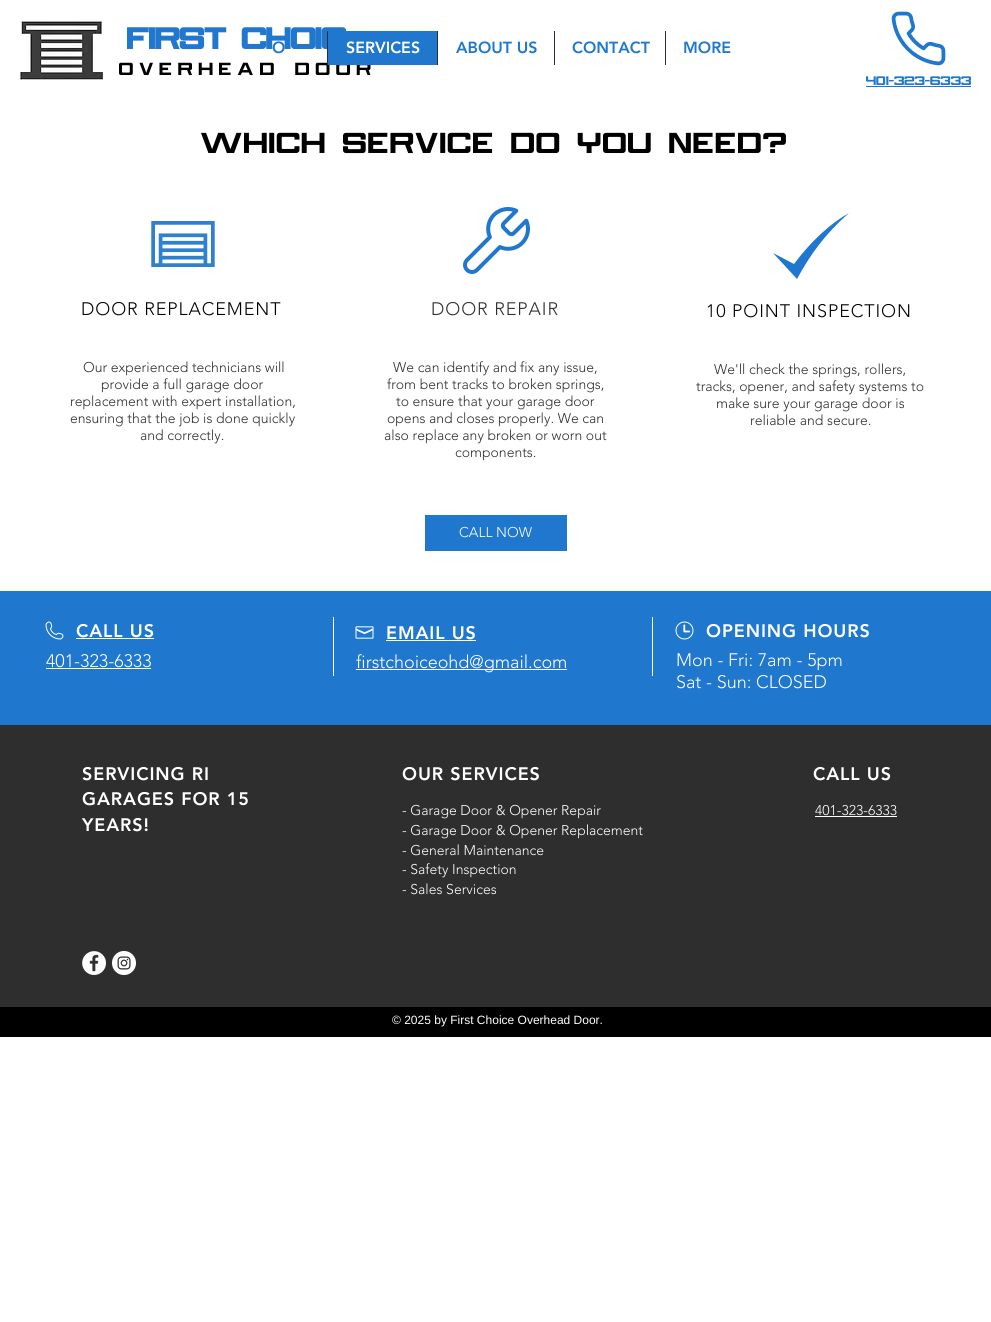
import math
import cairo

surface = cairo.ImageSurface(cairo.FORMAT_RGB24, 991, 1322)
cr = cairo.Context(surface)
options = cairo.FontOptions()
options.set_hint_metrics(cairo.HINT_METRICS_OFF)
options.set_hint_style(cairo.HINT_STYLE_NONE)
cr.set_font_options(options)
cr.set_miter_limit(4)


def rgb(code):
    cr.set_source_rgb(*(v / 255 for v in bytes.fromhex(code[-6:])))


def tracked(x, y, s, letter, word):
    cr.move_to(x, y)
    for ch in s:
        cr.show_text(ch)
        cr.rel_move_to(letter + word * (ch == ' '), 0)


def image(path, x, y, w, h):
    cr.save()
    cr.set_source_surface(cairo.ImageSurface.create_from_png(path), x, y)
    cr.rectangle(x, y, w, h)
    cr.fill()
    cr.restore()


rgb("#ffffff")
cr.paint()
image("img/1.png", 20, 20, 83, 60)
for x, y, w, h, color in [
    (437, 31, 1, 34, "#2f2e2e"),
    (554, 31, 1, 34, "#2f2e2e"),
    (665, 31, 1, 34, "#2f2e2e"),
]:
    rgb(color)
    cr.rectangle(x, y, w, h)
    cr.fill()
image("img/2.png", 891, 11, 55, 55)
rgb("#2077ce")
cr.rectangle(866, 86, 105, 1)
cr.fill()
image("img/3.png", 151, 221, 64, 46)
image("img/4.png", 463, 207, 67, 67)
cr.new_path()
cr.move_to(773, 253)
cr.line_to(797, 279)
cr.curve_to(810, 255, 825, 234, 849, 213)
cr.curve_to(831, 223, 811, 241, 794, 264)
cr.close_path()
cr.fill()
cr.rectangle(425, 515, 142, 36)
cr.fill()
cr.rectangle(0, 591, 991, 134)
cr.fill()
image("img/5.png", 45, 621, 19, 19)
rgb("#ffffff")
cr.rectangle(76, 638, 78, 1)
cr.fill()
cr.rectangle(333, 617, 1, 59)
cr.fill()
image("img/6.png", 355, 626, 19, 13)
cr.rectangle(386, 640, 90, 1)
cr.fill()
cr.rectangle(652, 617, 1, 59)
cr.fill()
image("img/7.png", 675, 621, 19, 19)
for x, y, w, h, color in [
    (46, 668, 105, 1, "#ffffff"),
    (356, 669, 211, 1, "#ffffff"),
    (0, 725, 991, 282, "#2f2e2e"),
    (815, 816, 82, 1, "#ffffff"),
]:
    rgb(color)
    cr.rectangle(x, y, w, h)
    cr.fill()
image("img/8.png", 82, 951, 24, 24)
image("img/9.png", 112, 951, 24, 24)
rgb("#000000")
cr.rectangle(0, 1007, 991, 30)
cr.fill()
cr.select_font_face("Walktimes", cairo.FONT_SLANT_NORMAL, cairo.FONT_WEIGHT_BOLD)
cr.set_font_size(29)
rgb("#2077ce")
cr.move_to(127, 49)
cr.show_text("FIRST CHOIC")
cr.select_font_face("Walktimes")
cr.set_font_size(17)
rgb("#000000")
tracked(119, 75, "OVERHEAD DOOR", 6, 0)
cr.select_font_face("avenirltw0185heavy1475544 Black")
cr.set_font_size(16)
rgb("#2077ce")
cr.move_to(272, 53)
cr.show_text("O")
cr.rectangle(328, 31, 109, 34)
cr.fill()
rgb("#2f2e2e")
cr.rectangle(327, 31, 1, 34)
cr.fill()
rgb("#ffffff")
cr.move_to(346, 53)
cr.show_text("SERVICES")
rgb("#2077ce")
for x, y, s in [
    (456, 53, "ABOUT US"),
    (572, 53, "CONTACT"),
    (683, 53, "MORE"),
]:
    cr.move_to(x, y)
    cr.show_text(s)
cr.select_font_face("Walktimes")
cr.set_font_size(12)
tracked(866, 85, "401-323-6333", 0.1, 0)
cr.set_font_size(28)
rgb("#000000")
tracked(201, 153, "WHICH SERVICE DO YOU NEED?", 1.4, 0)
cr.select_font_face("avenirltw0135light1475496 Light")
cr.set_font_size(18)
tracked(81, 315, "DOOR REPLACEMENT", 0.9, 0)
rgb("#2f2e2e")
tracked(431, 315, "DOOR REPAIR", 0.9, 0)
rgb("#000000")
tracked(706, 317, "10 POINT INSPECTION", 0.9, 0)
cr.set_font_size(14)
rgb("#2f2e2e")
for x, y, s in [
    (83, 372, "Our experienced technicians will"),
    (101, 389, "provide a full garage door"),
    (70, 406, "replacement with expert installation,"),
    (70, 423, "ensuring that the job is done quickly"),
    (140, 440, "and correctly."),
    (393, 372, "We can identify and fix any issue,"),
    (387, 389, "from bent tracks to broken springs,"),
    (396, 406, "to ensure that your garage door"),
    (387, 423, "opens and closes properly. We can"),
    (384, 440, "also replace any broken or worn out"),
    (455, 457, "components."),
    (714, 374, "We'll check the springs, rollers,"),
    (696, 391, "tracks, opener, and safety systems to"),
    (716, 408, "make sure your garage door is"),
    (750, 425, "reliable and secure."),
]:
    cr.move_to(x, y)
    cr.show_text(s)
rgb("#ffffff")
cr.move_to(459, 537)
cr.show_text("CALL NOW")
cr.select_font_face("avenirltw0185heavy1475544 Black")
cr.set_font_size(18)
for x, y, s in [
    (76, 637, "CALL US"),
    (386, 639, "EMAIL US"),
    (706, 637, "OPENING HOURS"),
]:
    tracked(x, y, s, 0.9, 0)
cr.select_font_face("avenirltw0135light1475496 Light")
for x, y, s in [
    (46, 667, "401-323-6333"),
    (356, 668, "firstchoiceohd@gmail.com"),
    (676, 666, "Mon - Fri: 7am - 5pm"),
    (676, 688, "Sat - Sun: CLOSED"),
]:
    cr.move_to(x, y)
    cr.show_text(s)
cr.select_font_face("avenirltw0185heavy1475544 Black")
for x, y, s in [
    (82, 780, "SERVICING RI"),
    (82, 805, "GARAGES FOR 15"),
    (82, 831, "YEARS!"),
    (402, 780, "OUR SERVICES"),
    (813, 780, "CALL US"),
]:
    tracked(x, y, s, 0.9, 0)
cr.select_font_face("avenirltw0135light1475496 Light")
cr.set_font_size(14)
for x, y, s in [
    (402, 815, "- Garage Door & Opener Repair"),
    (402, 835, "- Garage Door & Opener Replacement"),
    (402, 855, "- General Maintenance"),
    (402, 874, "- Safety Inspection"),
    (402, 894, "- Sales Services"),
    (815, 815, "401-323-6333"),
]:
    cr.move_to(x, y)
    cr.show_text(s)
cr.select_font_face("Liberation Sans")
cr.set_font_size(12)
cr.move_to(392, 1024)
cr.show_text("© 2025 by First Choice Overhead Door.")
surface.write_to_png("page.png")
